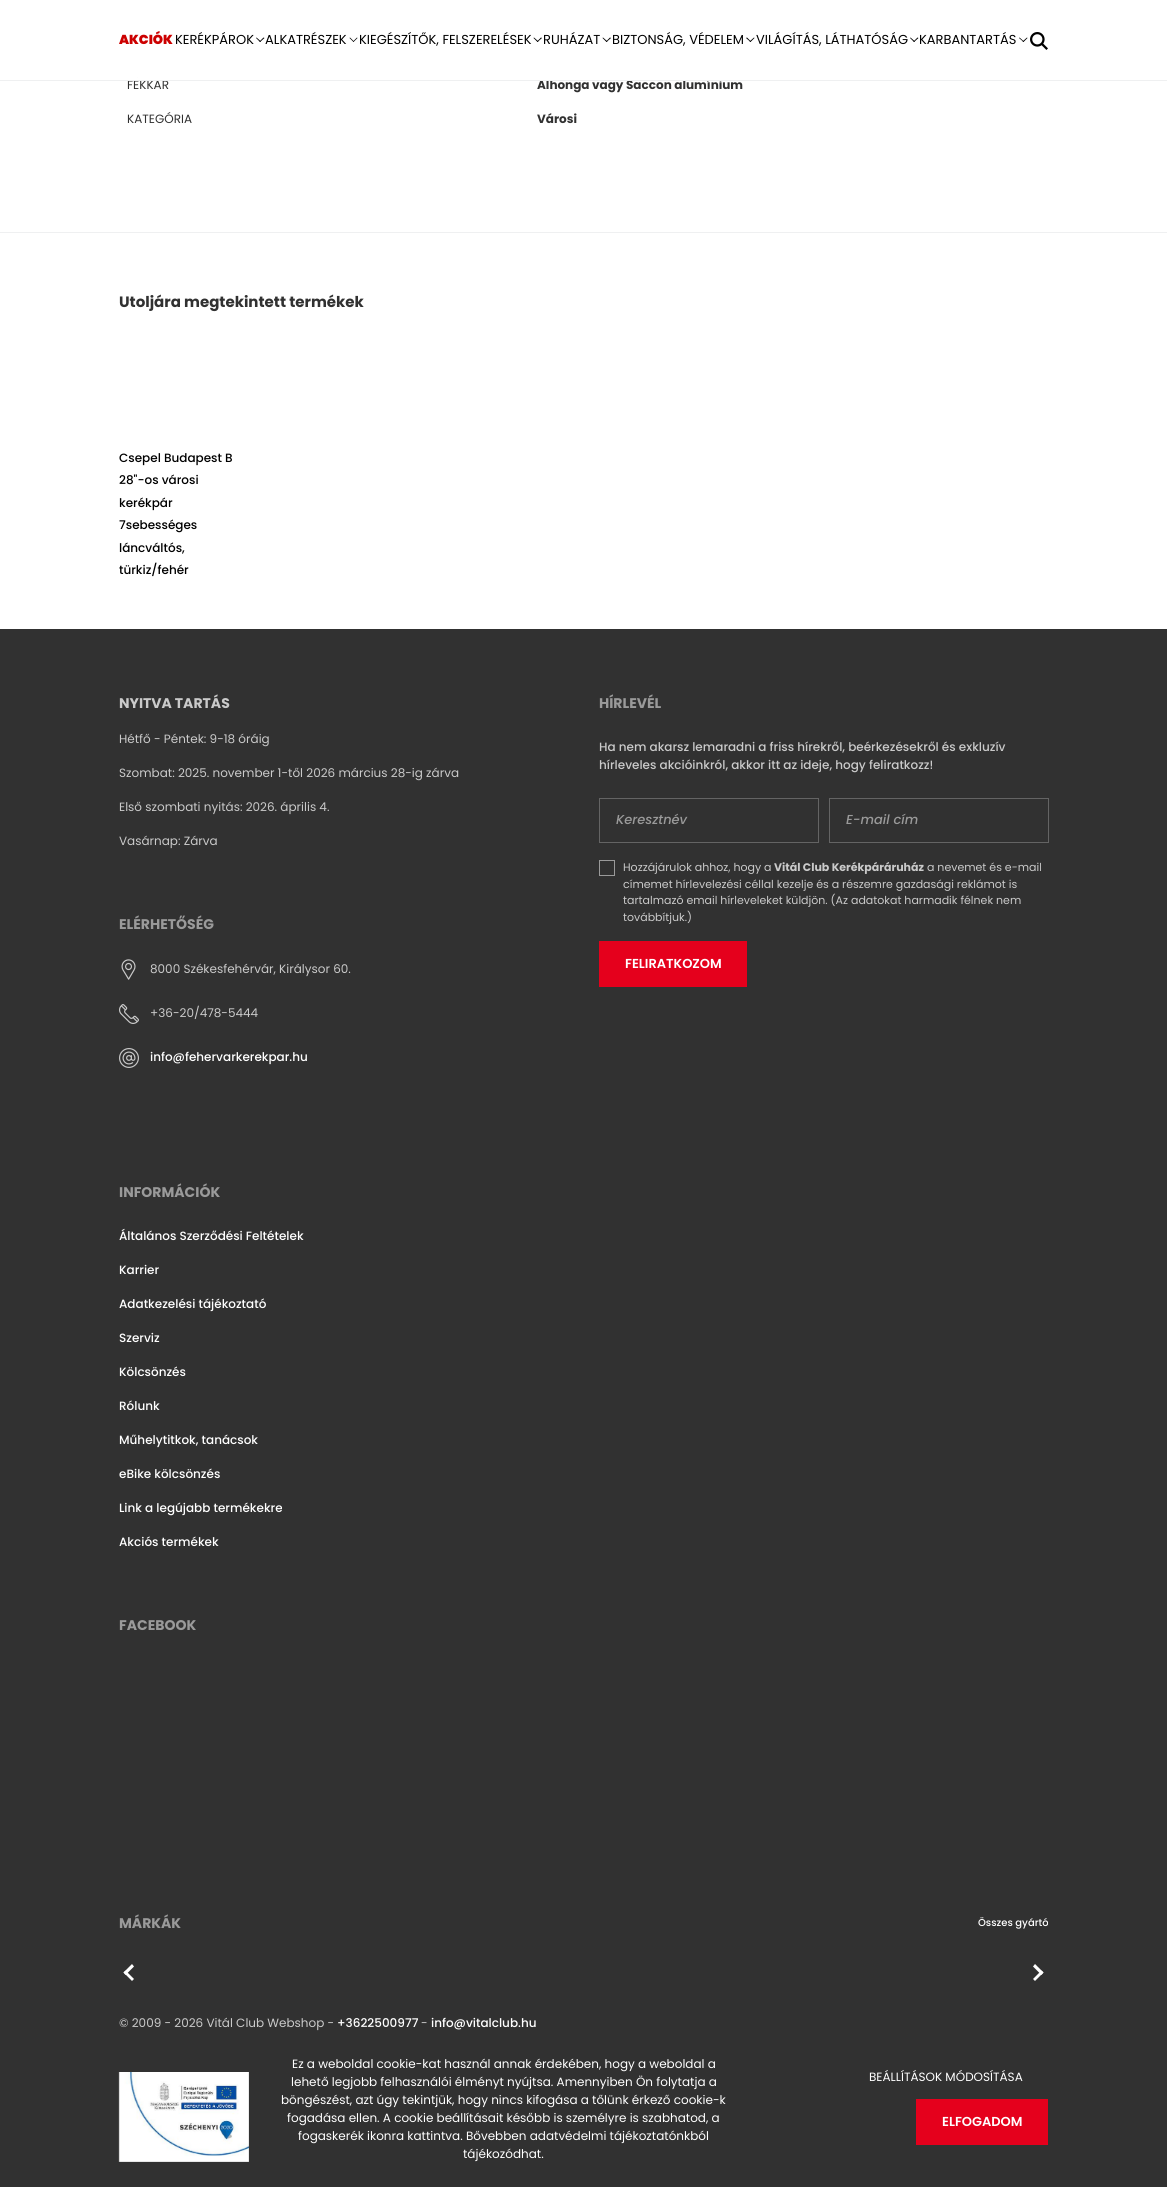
import math
import cairo

surface = cairo.ImageSurface(cairo.FORMAT_RGB24, 1167, 2187)
cr = cairo.Context(surface)
options = cairo.FontOptions()
options.set_hint_metrics(cairo.HINT_METRICS_OFF)
options.set_hint_style(cairo.HINT_STYLE_NONE)
cr.set_font_options(options)
cr.set_miter_limit(4)


def rgb(code):
    cr.set_source_rgb(*(v / 255 for v in bytes.fromhex(code[-6:])))


def image(path, x, y, w, h):
    cr.save()
    cr.set_source_surface(cairo.ImageSurface.create_from_png(path), x, y)
    cr.rectangle(x, y, w, h)
    cr.fill()
    cr.restore()


rgb("#ffffff")
cr.paint()
rgb("#000000")
cr.new_path()
cr.move_to(263.5, 37.5)
cr.line_to(264.5, 38)
cr.line_to(260, 42)
cr.line_to(259.5, 41.5)
cr.close_path()
cr.fill()
cr.new_path()
cr.move_to(256.5, 37.5)
cr.line_to(261, 41.5)
cr.line_to(260, 42)
cr.line_to(256, 38)
cr.close_path()
cr.fill()
cr.new_path()
cr.move_to(357, 37.5)
cr.line_to(357.5, 38)
cr.line_to(353.5, 42)
cr.line_to(353, 41.5)
cr.close_path()
cr.fill()
cr.new_path()
cr.move_to(350, 37.5)
cr.line_to(354, 41.5)
cr.line_to(353.5, 42)
cr.line_to(349.5, 38)
cr.close_path()
cr.fill()
cr.new_path()
cr.move_to(541, 37.5)
cr.line_to(542, 38)
cr.line_to(537.5, 42)
cr.line_to(537, 41.5)
cr.close_path()
cr.fill()
cr.new_path()
cr.move_to(534, 37.5)
cr.line_to(538.5, 41.5)
cr.line_to(537.5, 42)
cr.line_to(533.5, 38)
cr.close_path()
cr.fill()
cr.new_path()
cr.move_to(610, 37.5)
cr.line_to(611, 38)
cr.line_to(606.5, 42)
cr.line_to(606, 41.5)
cr.close_path()
cr.fill()
cr.new_path()
cr.move_to(603, 37.5)
cr.line_to(607.5, 41.5)
cr.line_to(606.5, 42)
cr.line_to(602.5, 38)
cr.close_path()
cr.fill()
cr.new_path()
cr.move_to(754, 37.5)
cr.line_to(754.5, 38)
cr.line_to(750.5, 42)
cr.line_to(749.5, 41.5)
cr.close_path()
cr.fill()
cr.new_path()
cr.move_to(747, 37.5)
cr.line_to(751, 41.5)
cr.line_to(750.5, 42)
cr.line_to(746, 38)
cr.close_path()
cr.fill()
cr.new_path()
cr.move_to(917.5, 37.5)
cr.line_to(918.5, 38)
cr.line_to(914, 42)
cr.line_to(913.5, 41.5)
cr.close_path()
cr.fill()
cr.new_path()
cr.move_to(910.5, 37.5)
cr.line_to(915, 41.5)
cr.line_to(914, 42)
cr.line_to(910, 38)
cr.close_path()
cr.fill()
cr.new_path()
cr.move_to(1027, 37.5)
cr.line_to(1027.5, 38)
cr.line_to(1023.5, 42)
cr.line_to(1022.5, 41.5)
cr.close_path()
cr.fill()
cr.new_path()
cr.move_to(1019.5, 37.5)
cr.line_to(1024, 41.5)
cr.line_to(1023.5, 42)
cr.line_to(1019, 38)
cr.close_path()
cr.fill()
image("img/1.png", 1030, 32, 18, 18)
rgb("#eff0f1")
cr.rectangle(0, 232, 1167, 1)
cr.fill()
rgb("#313131")
cr.rectangle(0, 629, 1167, 1558)
cr.fill()
image("img/2.png", 121, 959, 15, 21)
image("img/3.png", 119, 1004, 20, 20)
image("img/4.png", 119, 1048, 20, 20)
cr.rectangle(599.5, 798.5, 219, 44)
rgb("#646464")
cr.set_line_width(1)
cr.stroke()
cr.rectangle(829.5, 798.5, 219, 44)
cr.stroke()
cr.rectangle(599.5, 860.5, 15, 15)
rgb("#9a9a9a")
cr.stroke()
rgb("#e5001c")
cr.rectangle(599, 941, 148, 46)
cr.fill()
rgb("#ffffff")
cr.new_path()
cr.move_to(123.5, 1972.5)
cr.line_to(132, 1964)
cr.line_to(134, 1966.5)
cr.line_to(125.5, 1975)
cr.close_path()
cr.fill()
cr.new_path()
cr.move_to(123.5, 1972.5)
cr.line_to(125.5, 1970.5)
cr.line_to(134, 1979)
cr.line_to(132, 1981)
cr.close_path()
cr.fill()
cr.new_path()
cr.move_to(1033, 1966.5)
cr.line_to(1035, 1964)
cr.line_to(1043.5, 1972.5)
cr.line_to(1041.5, 1975)
cr.close_path()
cr.fill()
cr.new_path()
cr.move_to(1033, 1979)
cr.line_to(1041.5, 1970.5)
cr.line_to(1043.5, 1972.5)
cr.line_to(1035, 1981)
cr.close_path()
cr.fill()
image("img/5.png", 118, 2072, 131, 90)
rgb("#e5001c")
cr.rectangle(916, 2099, 132, 46)
cr.fill()
cr.select_font_face("Poppins Black")
cr.set_font_size(13)
rgb("#cc0000")
cr.move_to(119, 44)
cr.show_text("AKCIÓK")
cr.select_font_face("Poppins")
rgb("#000000")
for x, y, s in [
    (175, 44, "KERÉKPÁROK"),
    (265, 44, "ALKATRÉSZEK"),
    (359, 44, "KIEGÉSZÍTŐK, FELSZERELÉSEK"),
    (543, 44, "RUHÁZAT"),
    (612, 44, "BIZTONSÁG, VÉDELEM"),
    (756, 44, "VILÁGÍTÁS, LÁTHATÓSÁG"),
    (919, 44, "KARBANTARTÁS"),
]:
    cr.move_to(x, y)
    cr.show_text(s)
cr.set_font_size(12)
rgb("#313131")
cr.move_to(127, 89)
cr.show_text("FÉKKAR")
cr.select_font_face("Poppins", cairo.FONT_SLANT_NORMAL, cairo.FONT_WEIGHT_BOLD)
cr.move_to(537, 89)
cr.show_text("Alhonga vagy Saccon alumínium")
rgb("#eff0f1")
cr.rectangle(0, 80, 1167, 1)
cr.fill()
rgb("#ffffff")
cr.rectangle(134, 78, 588, 2)
cr.fill()
cr.select_font_face("Poppins")
rgb("#313131")
cr.move_to(127, 123)
cr.show_text("KATEGÓRIA")
cr.select_font_face("Poppins", cairo.FONT_SLANT_NORMAL, cairo.FONT_WEIGHT_BOLD)
cr.move_to(537, 123)
cr.show_text("Városi")
cr.set_font_size(15)
cr.move_to(119, 307)
cr.show_text("Utoljára megtekintett termékek")
cr.select_font_face("Poppins Medium")
cr.set_font_size(12)
rgb("#000000")
for x, y, s in [
    (119, 462, "Csepel Budapest B"),
    (119, 484, "28\"-os városi"),
    (119, 507, "kerékpár"),
    (119, 529, "7sebességes"),
    (119, 552, "láncváltós,"),
    (119, 574, "türkiz/fehér"),
]:
    cr.move_to(x, y)
    cr.show_text(s)
cr.select_font_face("Poppins", cairo.FONT_SLANT_NORMAL, cairo.FONT_WEIGHT_BOLD)
cr.set_font_size(14)
rgb("#cacaca")
cr.move_to(119, 708)
cr.show_text("NYITVA TARTÁS")
cr.select_font_face("Poppins")
cr.set_font_size(12)
for x, y, s in [
    (119, 743, "Hétfő - Péntek: 9-18 óráig"),
    (119, 777, "Szombat: 2025. november 1-től 2026 március 28-ig zárva"),
    (119, 811, "Első szombati nyitás: 2026. április 4."),
    (119, 845, "Vasárnap: Zárva"),
]:
    cr.move_to(x, y)
    cr.show_text(s)
cr.select_font_face("Poppins", cairo.FONT_SLANT_NORMAL, cairo.FONT_WEIGHT_BOLD)
cr.set_font_size(14)
rgb("#9a9a9a")
cr.move_to(119, 929)
cr.show_text("ELÉRHETŐSÉG")
cr.select_font_face("Poppins")
cr.set_font_size(12)
rgb("#cacaca")
cr.move_to(150, 973)
cr.show_text("8000 Székesfehérvár, Királysor 60.")
cr.move_to(150, 1017)
cr.show_text("+36-20/478-5444")
cr.select_font_face("Poppins Medium")
rgb("#ffffff")
cr.move_to(150, 1061)
cr.show_text("info@fehervarkerekpar.hu")
cr.select_font_face("Poppins", cairo.FONT_SLANT_NORMAL, cairo.FONT_WEIGHT_BOLD)
cr.set_font_size(14)
rgb("#9a9a9a")
cr.move_to(599, 708)
cr.show_text("HÍRLEVÉL")
cr.select_font_face("Poppins Medium")
cr.set_font_size(12)
rgb("#cacaca")
cr.move_to(599, 751)
cr.show_text("Ha nem akarsz lemaradni a friss hírekről, beérkezésekről és exkluzív")
cr.move_to(599, 769)
cr.show_text("hírleveles akcióinkról, akkor itt az ideje, hogy feliratkozz!")
cr.select_font_face("Poppins Medium", cairo.FONT_SLANT_ITALIC)
cr.set_font_size(13)
rgb("#9a9a9a")
cr.move_to(616, 824)
cr.show_text("Keresztnév")
cr.move_to(846, 824)
cr.show_text("E-mail cím")
cr.select_font_face("Poppins")
cr.set_font_size(11)
rgb("#cacaca")
cr.move_to(623, 871)
cr.show_text("Hozzájárulok ahhoz, hogy a")
cr.select_font_face("Poppins", cairo.FONT_SLANT_NORMAL, cairo.FONT_WEIGHT_BOLD)
cr.move_to(774, 871)
cr.show_text("Vitál Club Kerékpáráruház")
cr.select_font_face("Poppins")
for x, y, s in [
    (927, 871, "a nevemet és e-mail"),
    (623, 888, "címemet hírlevelezési céllal kezelje és a részemre gazdasági reklámot is"),
    (623, 904, "tartalmazó email hírleveleket küldjön. (Az adatokat harmadik félnek nem"),
    (623, 921, "továbbítjuk.)"),
]:
    cr.move_to(x, y)
    cr.show_text(s)
cr.select_font_face("Poppins SemiBold")
cr.set_font_size(13)
rgb("#ffffff")
cr.move_to(625, 968)
cr.show_text("FELIRATKOZOM")
cr.select_font_face("Poppins", cairo.FONT_SLANT_NORMAL, cairo.FONT_WEIGHT_BOLD)
cr.set_font_size(14)
rgb("#9a9a9a")
cr.move_to(119, 1197)
cr.show_text("INFORMÁCIÓK")
cr.select_font_face("Poppins Medium")
cr.set_font_size(12)
rgb("#ffffff")
for x, y, s in [
    (119, 1240, "Általános Szerződési Feltételek"),
    (119, 1274, "Karrier"),
    (119, 1308, "Adatkezelési tájékoztató"),
    (119, 1342, "Szerviz"),
    (119, 1376, "Kölcsönzés"),
    (119, 1410, "Rólunk"),
    (119, 1444, "Műhelytitkok, tanácsok"),
    (119, 1478, "eBike kölcsönzés"),
    (119, 1512, "Link a legújabb termékekre"),
    (119, 1546, "Akciós termékek"),
]:
    cr.move_to(x, y)
    cr.show_text(s)
cr.select_font_face("Poppins", cairo.FONT_SLANT_NORMAL, cairo.FONT_WEIGHT_BOLD)
cr.set_font_size(14)
rgb("#9a9a9a")
cr.move_to(119, 1630)
cr.show_text("FACEBOOK")
cr.move_to(119, 1928)
cr.show_text("MÁRKÁK")
cr.select_font_face("Poppins Medium")
cr.set_font_size(10)
rgb("#ffffff")
cr.move_to(978, 1926)
cr.show_text("Összes gyártó")
cr.select_font_face("Poppins")
cr.set_font_size(12)
rgb("#cacaca")
cr.move_to(119, 2027)
cr.show_text("© 2009 - 2026 Vitál Club Webshop -")
cr.select_font_face("Poppins Medium")
rgb("#ffffff")
cr.move_to(337, 2027)
cr.show_text("+3622500977")
cr.select_font_face("Poppins")
rgb("#cacaca")
cr.move_to(421, 2027)
cr.show_text("-")
cr.select_font_face("Poppins Medium")
rgb("#ffffff")
cr.move_to(431, 2027)
cr.show_text("info@vitalclub.hu")
cr.select_font_face("Poppins")
for x, y, s in [
    (292, 2068, "Ez a weboldal cookie-kat használ annak érdekében, hogy a weboldal a"),
    (291, 2086, "lehető legjobb felhasználói élményt nyújtsa. Amennyiben Ön folytatja a"),
    (281, 2104, "böngészést, azt úgy tekintjük, hogy nincs kifogása a tőlünk érkező cookie-k"),
    (287, 2122, "fogadása ellen. A cookie beállításait később is személyre is szabhatod, a"),
    (298, 2140, "fogaskerék ikonra kattintva. Bővebben adatvédelmi tájékoztatónkból"),
    (463, 2158, "tájékozódhat."),
    (869, 2081, "BEÁLLÍTÁSOK MÓDOSÍTÁSA"),
]:
    cr.move_to(x, y)
    cr.show_text(s)
cr.select_font_face("Poppins SemiBold")
cr.set_font_size(13)
cr.move_to(942, 2126)
cr.show_text("ELFOGADOM")
surface.write_to_png("page.png")
